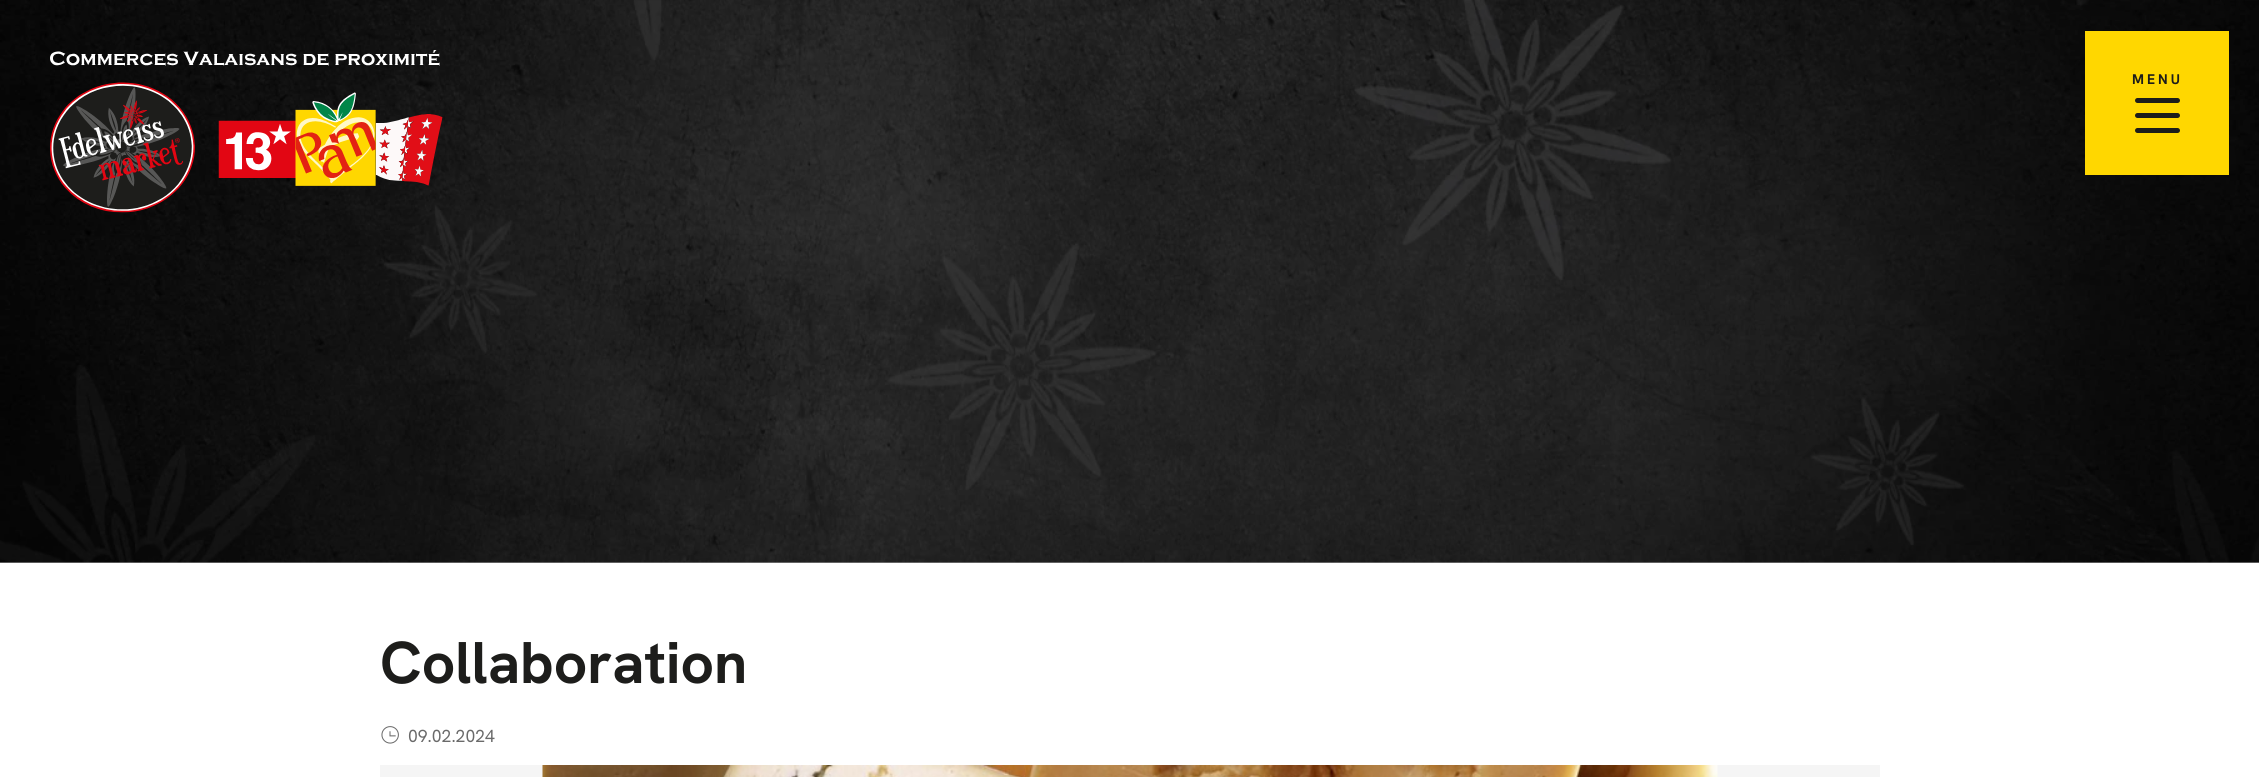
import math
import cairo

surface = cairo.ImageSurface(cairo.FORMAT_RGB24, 2259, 777)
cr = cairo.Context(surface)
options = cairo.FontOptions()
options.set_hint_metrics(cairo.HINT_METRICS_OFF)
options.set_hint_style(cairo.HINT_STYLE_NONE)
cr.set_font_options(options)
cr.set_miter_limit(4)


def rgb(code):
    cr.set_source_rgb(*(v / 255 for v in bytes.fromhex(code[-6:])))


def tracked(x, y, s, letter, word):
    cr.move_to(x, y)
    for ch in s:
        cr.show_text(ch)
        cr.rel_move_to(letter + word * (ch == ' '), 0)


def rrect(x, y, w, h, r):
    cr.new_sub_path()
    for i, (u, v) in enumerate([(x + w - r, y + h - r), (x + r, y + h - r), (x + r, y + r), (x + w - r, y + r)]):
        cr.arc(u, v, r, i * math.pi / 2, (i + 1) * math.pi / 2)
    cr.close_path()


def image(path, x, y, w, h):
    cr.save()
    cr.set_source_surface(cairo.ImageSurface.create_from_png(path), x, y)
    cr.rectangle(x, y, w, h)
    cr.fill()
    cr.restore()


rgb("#ffffff")
cr.paint()
rgb("#a6a6a6")
cr.rectangle(0, 562, 2259, 1)
cr.fill()
image("img/1.png", 0, 0, 2259, 563)
rgb("#ffd700")
cr.rectangle(2085, 31, 144, 144)
cr.fill()
rgb("#1d1d1b")
rrect(2135, 128, 45, 5, 2.5)
cr.fill()
rrect(2135, 98, 45, 5, 2.5)
cr.fill()
rrect(2135, 113, 45, 5, 2.5)
cr.fill()
image("img/2.png", 50, 50, 393, 163)
image("img/3.png", 381, 726, 18, 18)
rgb("#f5f5f5")
cr.rectangle(380, 765, 1500, 12)
cr.fill()
image("img/4.png", 542, 765, 1176, 12)
cr.select_font_face("Hanken Grotesk", cairo.FONT_SLANT_NORMAL, cairo.FONT_WEIGHT_BOLD)
cr.set_font_size(14)
rgb("#1d1d1b")
tracked(2132, 84, "MENU", 3, 0)
cr.set_font_size(58.75)
cr.move_to(380, 683)
cr.show_text("Collaboration")
cr.select_font_face("Hanken Grotesk")
cr.set_font_size(17.5)
rgb("#6a6a6a")
cr.move_to(408, 742)
cr.show_text("09.02.2024")
surface.write_to_png("page.png")
